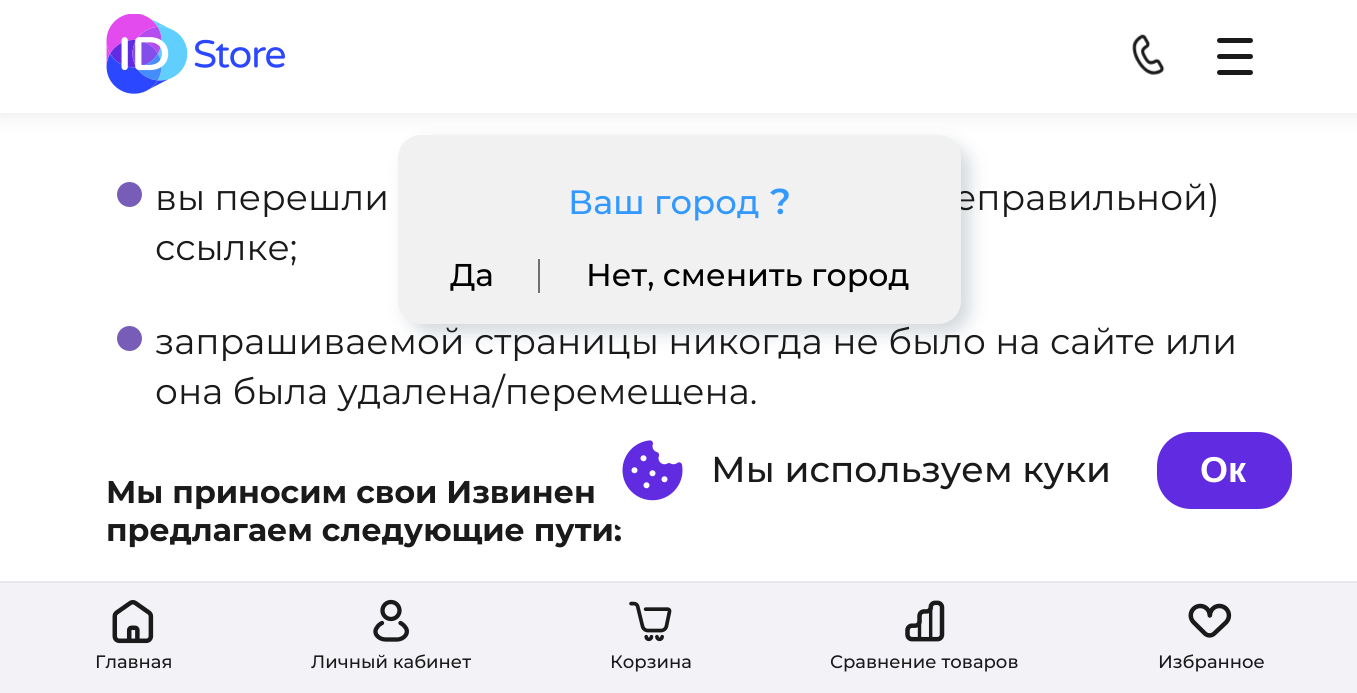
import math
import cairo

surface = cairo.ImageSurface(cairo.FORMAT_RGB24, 1357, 693)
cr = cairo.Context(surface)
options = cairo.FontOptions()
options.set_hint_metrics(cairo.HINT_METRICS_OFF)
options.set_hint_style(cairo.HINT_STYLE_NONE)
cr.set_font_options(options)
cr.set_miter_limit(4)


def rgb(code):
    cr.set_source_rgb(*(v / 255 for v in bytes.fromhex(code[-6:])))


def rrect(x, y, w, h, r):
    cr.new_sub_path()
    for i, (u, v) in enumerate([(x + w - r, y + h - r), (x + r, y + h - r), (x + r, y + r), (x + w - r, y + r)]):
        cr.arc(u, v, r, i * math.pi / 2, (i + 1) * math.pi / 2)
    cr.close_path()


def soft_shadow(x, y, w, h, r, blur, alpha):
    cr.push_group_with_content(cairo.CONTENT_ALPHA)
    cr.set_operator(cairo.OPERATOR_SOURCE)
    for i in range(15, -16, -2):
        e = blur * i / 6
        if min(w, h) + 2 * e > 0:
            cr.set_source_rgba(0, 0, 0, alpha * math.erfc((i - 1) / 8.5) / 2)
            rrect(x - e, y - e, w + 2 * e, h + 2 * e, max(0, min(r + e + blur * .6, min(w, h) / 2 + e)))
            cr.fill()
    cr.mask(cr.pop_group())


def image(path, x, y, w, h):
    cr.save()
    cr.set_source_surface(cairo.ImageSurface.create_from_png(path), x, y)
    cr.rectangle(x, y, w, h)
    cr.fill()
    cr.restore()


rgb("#ffffff")
cr.paint()
rgb("#775cb8")
cr.arc(129.5, 194.5, 12.5, 0, 2 * math.pi)
cr.fill()
cr.arc(129.5, 338.5, 12.5, 0, 2 * math.pi)
cr.fill()
rgb("#000000")
soft_shadow(0, 0, 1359, 113, 0, 11, 0.1)
rgb("#ffffff")
cr.rectangle(0, 0, 1357, 113)
cr.fill()
image("img/1.png", 106, 14, 179, 80)
image("img/2.png", 1132, 34, 33, 41)
rgb("#1a1a1a")
rrect(1217, 54, 36, 5, 2.5)
cr.fill()
rrect(1217, 38, 36, 5, 2.5)
cr.fill()
rrect(1217, 70, 36, 5, 2.5)
cr.fill()
rgb("#223c50")
soft_shadow(407, 144, 563, 189, 23, 9, 0.2)
rgb("#f3f2f7")
cr.rectangle(0, 583, 1357, 110)
cr.fill()
rgb("#e9e8ed")
cr.rectangle(0, 581, 1357, 2)
cr.fill()
image("img/4.png", 112, 600, 42, 44)
cr.arc(391, 610.5, 8.5, 0, 2 * math.pi)
rgb("#1a1a1a")
cr.set_line_width(4.3)
cr.stroke()
cr.new_path()
cr.move_to(382, 623)
cr.curve_to(380, 624, 378, 625.5, 377, 627.5)
cr.curve_to(372.5, 633, 378.5, 639.5, 385.5, 639.5)
cr.line_to(397, 639.5)
cr.curve_to(404, 639.5, 409.5, 633, 405.5, 627.5)
cr.curve_to(404, 625.5, 402.5, 624, 400.5, 623)
cr.set_line_cap(cairo.LINE_CAP_ROUND)
cr.stroke()
image("img/5.png", 629, 601, 43, 41)
image("img/6.png", 905, 600, 40, 42)
image("img/7.png", 1188, 603, 44, 35)
cr.select_font_face("Montserrat")
cr.set_font_size(36)
for x, y, s in [
    (155, 210, "вы перешли"),
    (954, 210, "еправильной)"),
    (155, 260, "ссылке;"),
    (155, 354, "запрашиваемой страницы никогда не было на сайте или"),
    (155, 404, "она была удалена/перемещена."),
]:
    cr.move_to(x, y)
    cr.show_text(s)
cr.select_font_face("Montserrat", cairo.FONT_SLANT_NORMAL, cairo.FONT_WEIGHT_BOLD)
cr.set_font_size(31.5)
cr.move_to(106, 503)
cr.show_text("Мы приносим свои Извинен")
cr.move_to(106, 541)
cr.show_text("предлагаем следующие пути:")
rgb("#f1f1f1")
rrect(398, 135, 563, 189, 23)
cr.fill()
cr.select_font_face("Montserrat Medium")
cr.set_font_size(33.75)
rgb("#3399ff")
cr.move_to(568, 214)
cr.show_text("Ваш город")
cr.select_font_face("Montserrat SemiBold")
cr.set_font_size(36)
cr.move_to(770, 214)
cr.show_text("?")
cr.select_font_face("Montserrat Medium")
cr.set_font_size(31.5)
rgb("#000000")
cr.move_to(450, 286)
cr.show_text("Да")
rgb("#707070")
cr.rectangle(538, 259, 2, 34)
cr.fill()
rgb("#000000")
cr.move_to(586, 286)
cr.show_text("Нет, сменить город")
rgb("#ffffff")
rrect(594, 405, 720, 131, 56)
cr.fill()
image("img/3.png", 622, 440, 61, 61)
cr.set_font_size(36)
rgb("#1a1a1a")
cr.move_to(711, 482)
cr.show_text("Мы используем куки")
rgb("#612be2")
rrect(1157, 432, 135, 77, 34)
cr.fill()
cr.select_font_face("Liberation Sans", cairo.FONT_SLANT_NORMAL, cairo.FONT_WEIGHT_BOLD)
rgb("#ffffff")
cr.move_to(1200, 482)
cr.show_text("Ок")
cr.select_font_face("Montserrat Medium")
cr.set_font_size(18)
rgb("#1a1a1a")
for x, y, s in [
    (95, 668, "Главная"),
    (311, 668, "Личный кабинет"),
    (610, 668, "Корзина"),
    (830, 668, "Сравнение товаров"),
    (1158, 668, "Избранное"),
]:
    cr.move_to(x, y)
    cr.show_text(s)
surface.write_to_png("page.png")
